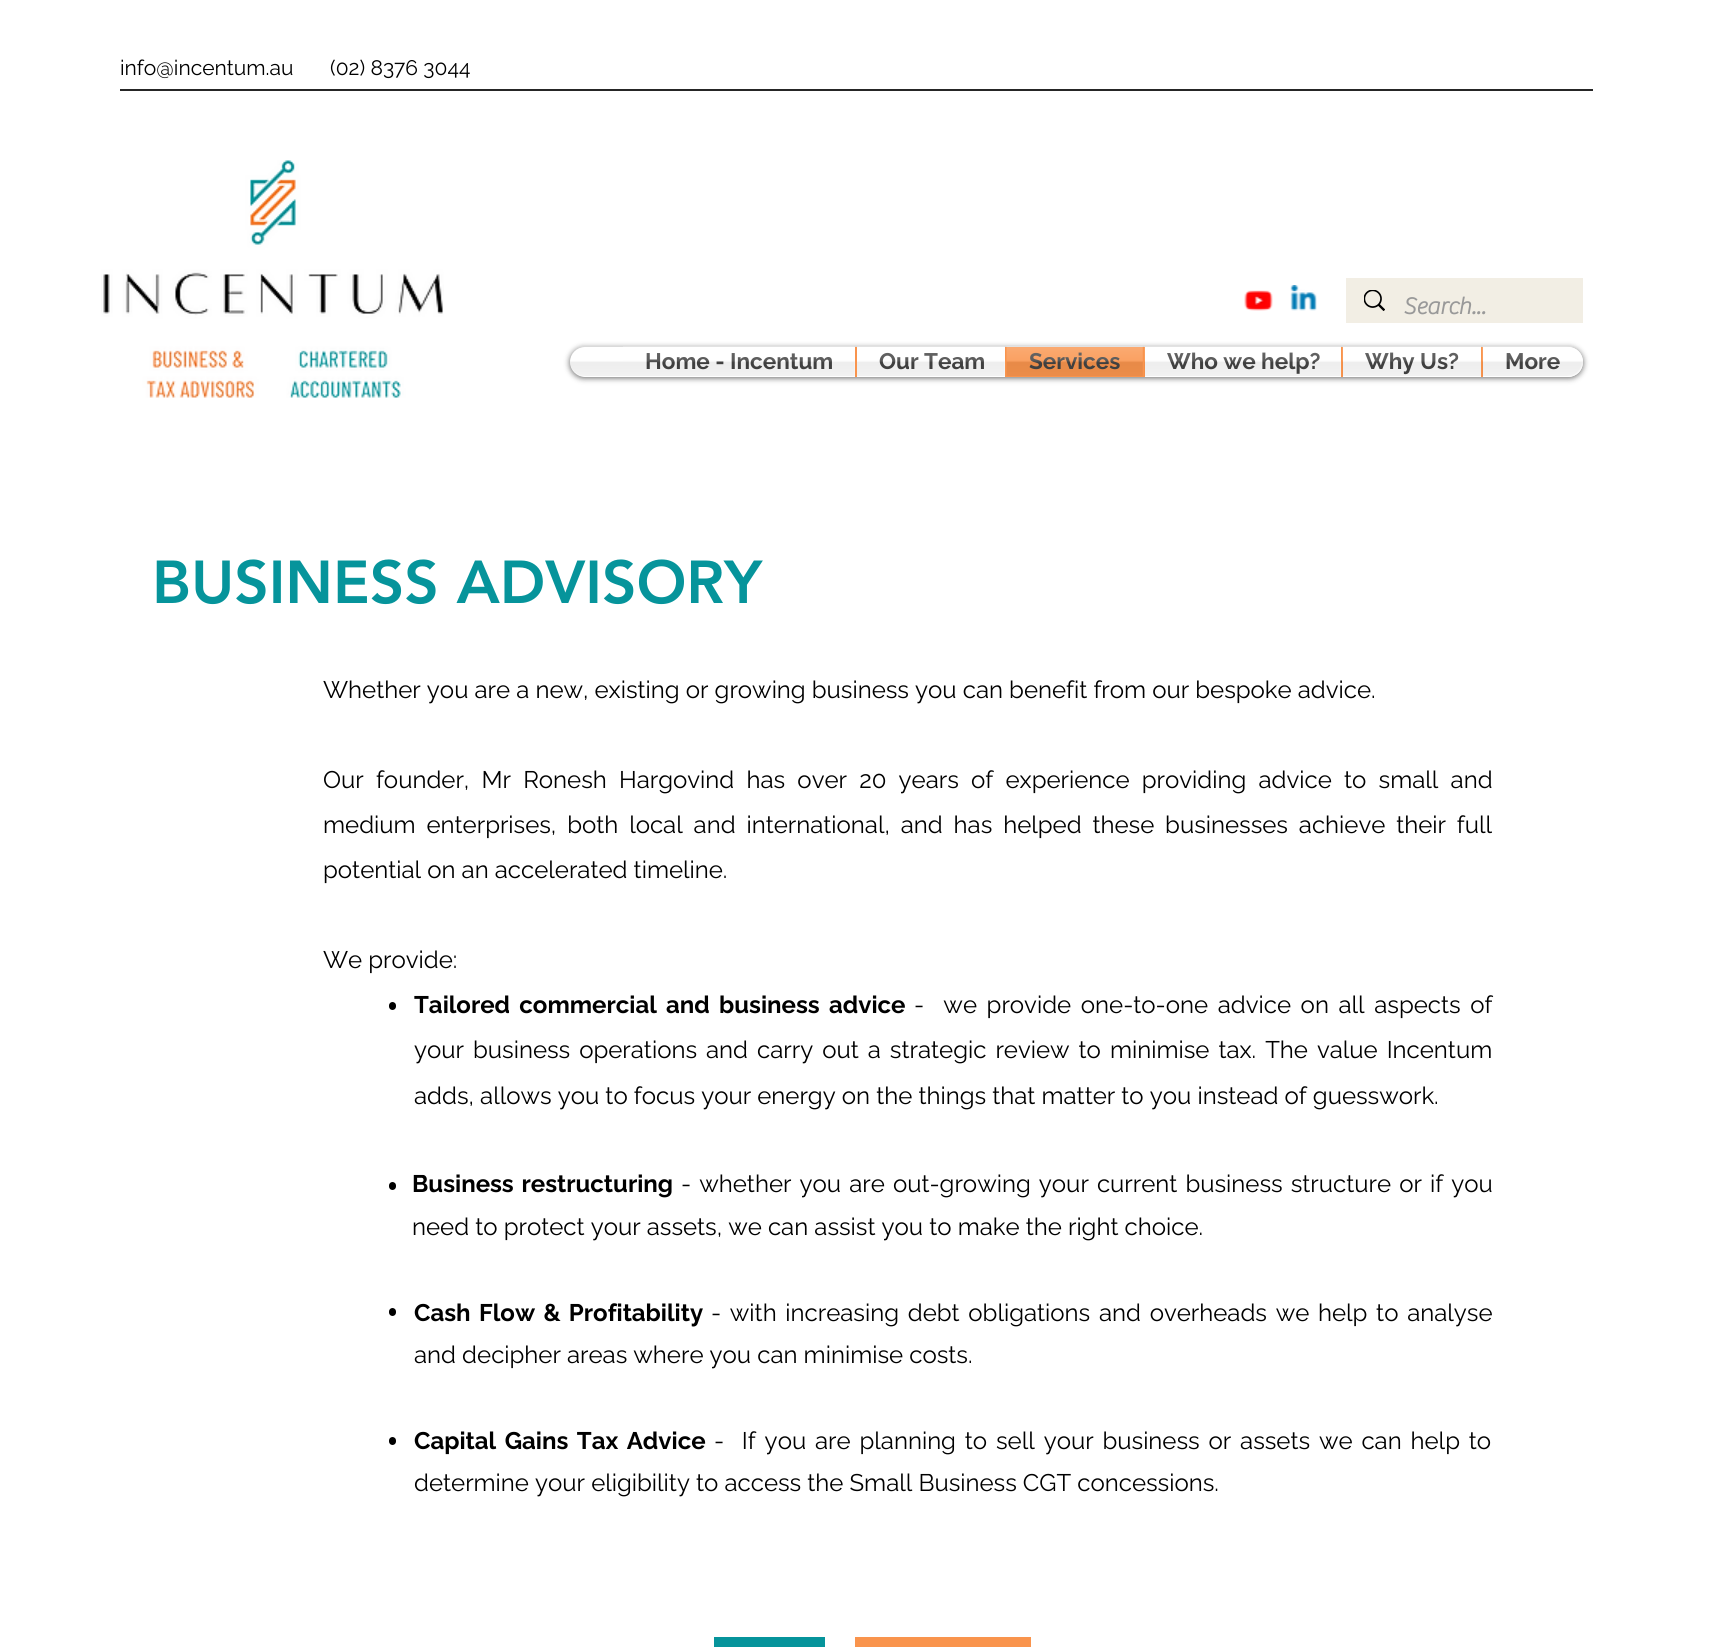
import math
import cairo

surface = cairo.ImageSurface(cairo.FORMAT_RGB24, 1713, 1647)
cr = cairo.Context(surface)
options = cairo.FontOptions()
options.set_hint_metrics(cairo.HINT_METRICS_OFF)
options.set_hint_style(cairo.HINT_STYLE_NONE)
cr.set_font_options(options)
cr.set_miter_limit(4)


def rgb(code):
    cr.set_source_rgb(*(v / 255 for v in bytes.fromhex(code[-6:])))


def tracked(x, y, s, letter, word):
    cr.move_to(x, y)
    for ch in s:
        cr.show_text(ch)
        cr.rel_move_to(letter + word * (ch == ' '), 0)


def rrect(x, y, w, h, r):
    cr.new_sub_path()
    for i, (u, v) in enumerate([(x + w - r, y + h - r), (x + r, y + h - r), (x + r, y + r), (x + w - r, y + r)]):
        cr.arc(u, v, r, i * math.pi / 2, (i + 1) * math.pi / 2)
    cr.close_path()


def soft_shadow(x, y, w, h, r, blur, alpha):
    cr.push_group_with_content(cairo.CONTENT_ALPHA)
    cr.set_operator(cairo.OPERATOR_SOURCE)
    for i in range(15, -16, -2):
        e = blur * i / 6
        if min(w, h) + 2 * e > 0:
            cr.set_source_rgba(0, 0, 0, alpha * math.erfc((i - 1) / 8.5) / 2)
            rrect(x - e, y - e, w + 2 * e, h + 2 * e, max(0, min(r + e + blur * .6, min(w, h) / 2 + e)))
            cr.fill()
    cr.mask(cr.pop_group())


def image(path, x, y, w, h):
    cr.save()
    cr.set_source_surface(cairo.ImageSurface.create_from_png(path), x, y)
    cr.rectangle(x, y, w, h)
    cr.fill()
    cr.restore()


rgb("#ffffff")
cr.paint()
rgb("#262626")
cr.rectangle(120, 89, 1473, 2)
cr.fill()
image("img/1.png", 101, 160, 343, 238)
image("img/2.png", 1244, 290, 29, 21)
image("img/3.png", 1290, 285, 27, 26)
rgb("#f2eee4")
cr.rectangle(1346, 278, 237, 45)
cr.fill()
image("img/4.png", 1364, 290, 21, 21)
rgb("#000000")
soft_shadow(570, 348, 1013, 30, 15, 3, 0.6)
rgb("#ffffff")
rrect(570, 347, 1013, 30, 15)
cr.fill()
image("img/5.png", 570, 346, 1012, 30)
for x, y, w, h, color in [
    (623, 361, 232, 15, "#ffffff"),
    (857, 361, 148, 15, "#ffffff"),
    (855, 347, 2, 30, "#f9944d"),
    (1005, 347, 140, 30, "#f9944d"),
    (1145, 361, 196, 15, "#ffffff"),
    (1343, 361, 138, 15, "#ffffff"),
    (1341, 347, 2, 30, "#f9944d"),
]:
    rgb(color)
    cr.rectangle(x, y, w, h)
    cr.fill()
rgb("#ffffff")
cr.new_path()
cr.move_to(1481, 347)
cr.line_to(1568, 347)
cr.curve_to(1576.5, 347, 1583, 353.5, 1583, 362)
cr.curve_to(1583, 370.5, 1576.5, 377, 1568, 377)
cr.line_to(1481, 377)
cr.close_path()
cr.fill()
rgb("#f9944d")
cr.rectangle(1481, 347, 2, 30)
cr.fill()
rgb("#000000")
rrect(389, 1002, 7, 8, 3.5)
cr.fill()
rrect(389, 1182, 7, 8, 3.5)
cr.fill()
rrect(389, 1308, 7, 8, 3.5)
cr.fill()
rrect(389, 1437, 7, 8, 3.5)
cr.fill()
rgb("#06949b")
cr.rectangle(714, 1637, 111, 10)
cr.fill()
rgb("#f9944d")
cr.rectangle(855, 1637, 176, 10)
cr.fill()
cr.select_font_face("Raleway")
cr.set_font_size(21)
rgb("#000000")
cr.move_to(120, 75)
cr.show_text("info@incentum.au")
cr.move_to(330, 75)
cr.show_text("(02) 8376 3044")
cr.select_font_face("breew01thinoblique", cairo.FONT_SLANT_NORMAL, cairo.FONT_WEIGHT_BOLD)
cr.set_font_size(24)
rgb("#999999")
cr.move_to(1403, 314)
cr.show_text("Search...")
cr.select_font_face("Raleway", cairo.FONT_SLANT_NORMAL, cairo.FONT_WEIGHT_BOLD)
cr.set_font_size(22.5)
rgb("#444444")
cr.move_to(645, 369)
cr.show_text("Home - Incentum")
image("img/6.png", 623, 346, 232, 30)
cr.move_to(879, 369)
cr.show_text("Our Team")
image("img/7.png", 857, 346, 148, 30)
cr.move_to(1029, 369)
cr.show_text("Services")
image("img/8.png", 1006, 346, 137, 30)
cr.move_to(1167, 369)
cr.show_text("Who we help?")
image("img/9.png", 1144, 346, 197, 30)
cr.move_to(1365, 369)
cr.show_text("Why Us?")
image("img/10.png", 1342, 346, 139, 30)
cr.move_to(1505, 369)
cr.show_text("More")
image("img/11.png", 1481, 346, 102, 30)
cr.select_font_face("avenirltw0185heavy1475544 Black")
cr.set_font_size(60)
rgb("#06949b")
cr.move_to(152, 603)
cr.show_text("BUSINESS ADVISORY")
cr.select_font_face("Raleway")
cr.set_font_size(24)
rgb("#000000")
cr.move_to(323, 698)
cr.show_text("Whether you are a new, existing or growing business you can benefit from our bespoke advice.")
tracked(323, 788, "Our founder, Mr Ronesh Hargovind has over 20 years of experience providing advice to small and", 0, 6.1)
tracked(323, 833, "medium enterprises, both local and international, and has helped these businesses achieve their full", 0, 4.75)
cr.move_to(323, 878)
cr.show_text("potential on an accelerated timeline.")
cr.move_to(323, 968)
cr.show_text("We provide:")
cr.select_font_face("Raleway", cairo.FONT_SLANT_NORMAL, cairo.FONT_WEIGHT_BOLD)
tracked(414, 1013, "Tailored commercial and business advice", 0, 3.5)
cr.select_font_face("Raleway")
tracked(914, 1013, "-  we provide one-to-one advice on all aspects of", 0, 3.5)
tracked(414, 1058, "your business operations and carry out a strategic review to minimise tax. The value Incentum", 0, 2.9)
cr.move_to(414, 1104)
cr.show_text("adds, allows you to focus your energy on the things that matter to you instead of guesswork.")
cr.select_font_face("Raleway", cairo.FONT_SLANT_NORMAL, cairo.FONT_WEIGHT_BOLD)
tracked(412, 1192, "Business restructuring", 0, 2)
cr.select_font_face("Raleway")
tracked(681, 1192, "- whether you are out-growing your current business structure or if you", 0, 2)
cr.move_to(412, 1235)
cr.show_text("need to protect your assets, we can assist you to make the right choice.")
cr.select_font_face("Raleway", cairo.FONT_SLANT_NORMAL, cairo.FONT_WEIGHT_BOLD)
tracked(414, 1321, "Cash Flow & Profitability", 0, 2.6)
cr.select_font_face("Raleway")
tracked(711, 1321, "- with increasing debt obligations and overheads we help to analyse", 0, 2.6)
cr.move_to(414, 1363)
cr.show_text("and decipher areas where you can minimise costs.")
cr.select_font_face("Raleway", cairo.FONT_SLANT_NORMAL, cairo.FONT_WEIGHT_BOLD)
tracked(414, 1449, "Capital Gains Tax Advice", 0, 2.75)
cr.select_font_face("Raleway")
tracked(714, 1449, "-  If you are planning to sell your business or assets we can help to", 0, 2.75)
cr.move_to(414, 1491)
cr.show_text("determine your eligibility to access the Small Business CGT concessions.")
surface.write_to_png("page.png")
